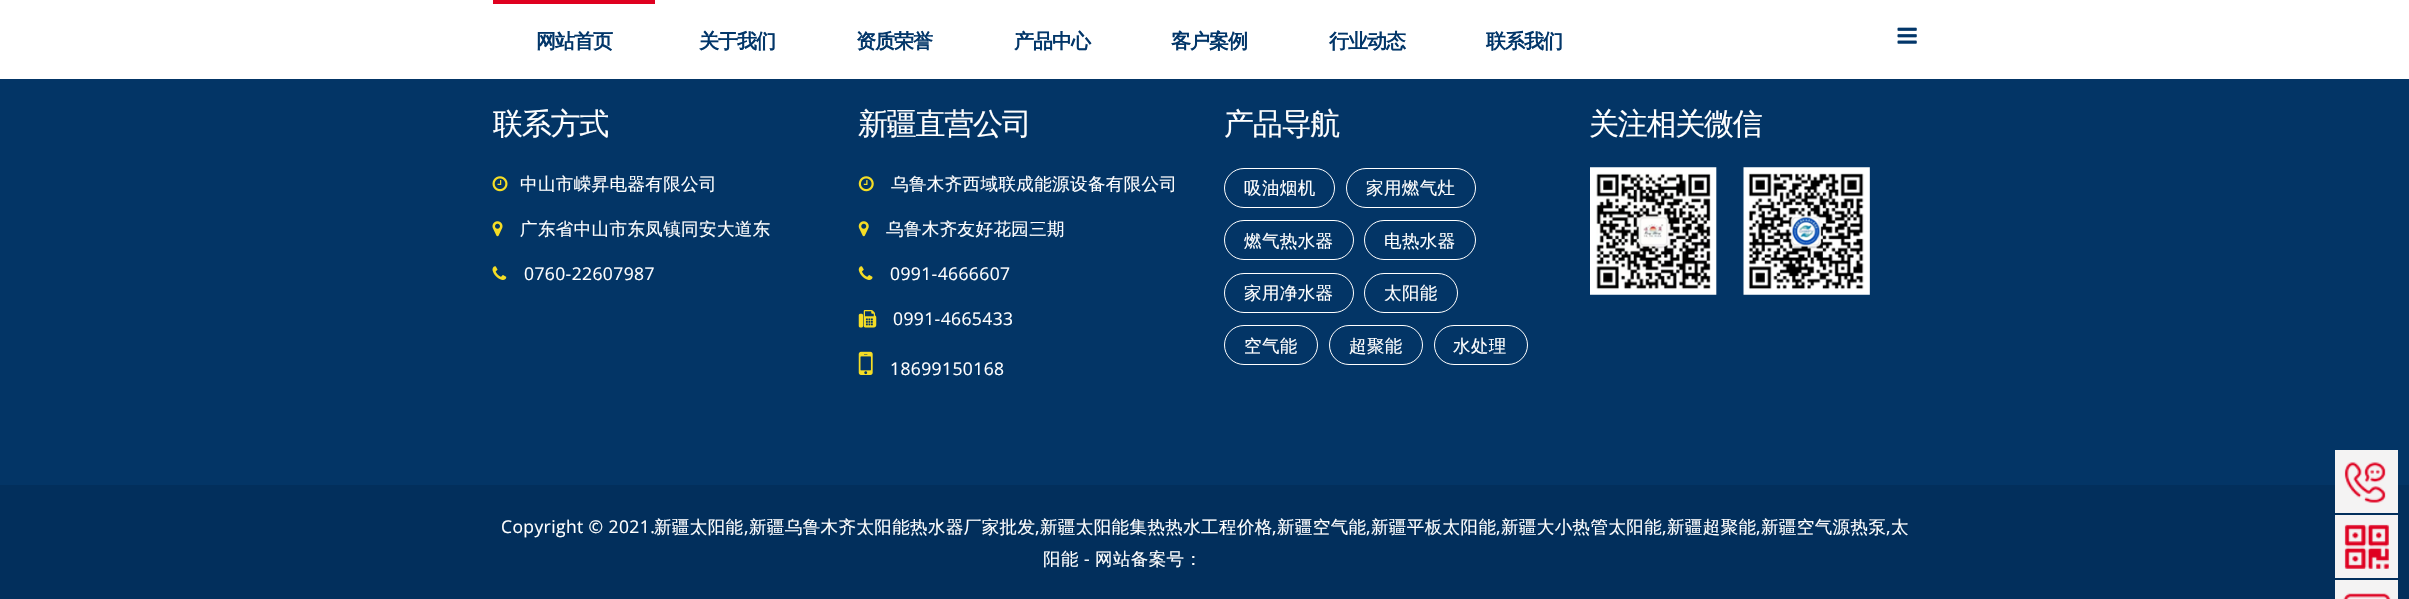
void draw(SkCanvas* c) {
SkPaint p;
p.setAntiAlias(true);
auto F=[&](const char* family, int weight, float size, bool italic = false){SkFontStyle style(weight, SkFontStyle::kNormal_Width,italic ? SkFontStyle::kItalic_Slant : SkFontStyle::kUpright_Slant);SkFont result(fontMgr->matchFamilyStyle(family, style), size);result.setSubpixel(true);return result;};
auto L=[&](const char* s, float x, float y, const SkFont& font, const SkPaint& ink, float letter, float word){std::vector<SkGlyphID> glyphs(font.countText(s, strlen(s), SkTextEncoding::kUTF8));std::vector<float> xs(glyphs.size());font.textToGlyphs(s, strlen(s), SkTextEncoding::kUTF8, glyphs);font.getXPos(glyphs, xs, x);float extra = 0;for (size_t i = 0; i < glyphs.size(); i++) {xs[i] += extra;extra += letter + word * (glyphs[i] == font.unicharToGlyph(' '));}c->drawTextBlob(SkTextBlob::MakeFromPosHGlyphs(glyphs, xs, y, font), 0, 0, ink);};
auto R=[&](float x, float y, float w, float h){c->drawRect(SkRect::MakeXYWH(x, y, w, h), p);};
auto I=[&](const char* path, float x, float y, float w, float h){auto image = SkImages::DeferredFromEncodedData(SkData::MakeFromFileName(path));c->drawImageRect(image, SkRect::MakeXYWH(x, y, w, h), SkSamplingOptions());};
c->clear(0xff033566);
p.setColor(0xffffffff);
R(0,0,2409,79);
p.setColor(0xffdf0020);
R(493,0,162,4);
auto f1 = F("WenQuanYi Zen Hei",700,20);
p.setColor(0xff023669);
L("网站首页",536,48,f1,p,-1,0);
L("关于我们",699,48,f1,p,-1,0);
L("资质荣誉",856,48,f1,p,-1,0);
L("产品中心",1014,48,f1,p,-1,0);
L("客户案例",1171,48,f1,p,-1,0);
L("行业动态",1329,48,f1,p,-1,0);
L("联系我们",1486,48,f1,p,-1,0);
I("1.png",1897,27,20,17);
auto f2 = F("WenQuanYi Zen Hei",500,30);
p.setColor(0xffffffff);
L("联系方式",493,134,f2,p,-1.25,0);
I("2.png",492,176,16,16);
auto f3 = F("WenQuanYi Zen Hei",500,17.5);
L("中山市嵘昇电器有限公司",520,190,f3,p,.4,0);
I("3.png",492,221,11,16);
L("广东省中山市东凤镇同安大道东",520,235,f3,p,.4,0);
I("4.png",492,266,15,14);
auto f4 = F("Open Sans",400,17.5);
L("0760-22607987",524,280,f4,p,.4,0);
L("新疆直营公司",858,134,f2,p,-1.25,0);
I("5.png",858,176,16,16);
L("乌鲁木齐西域联成能源设备有限公司",891,190,f3,p,.4,0);
I("6.png",858,221,11,16);
L("乌鲁木齐友好花园三期",886,235,f3,p,.4,0);
I("7.png",858,266,15,14);
L("0991-4666607",890,280,f4,p,.4,0);
I("8.png",858,310,19,18);
L("0991-4665433",893,325,f4,p,.4,0);
I("9.png",858,351,15,24);
L("18699150168",890,375,f4,p,.4,0);
L("产品导航",1224,134,f2,p,-1.25,0);
p.setStroke(true);
p.setStrokeWidth(1);
c->drawRoundRect(SkRect::MakeXYWH(1224.5,168.5,110,39),19.5,19.5,p);
p.setStroke(false);
L("吸油烟机",1244,194,f3,p,.4,0);
p.setStroke(true);
c->drawRoundRect(SkRect::MakeXYWH(1346.5,168.5,129,39),19.5,19.5,p);
p.setStroke(false);
L("家用燃气灶",1366,194,f3,p,.4,0);
p.setStroke(true);
c->drawRoundRect(SkRect::MakeXYWH(1224.5,220.5,129,39),19.5,19.5,p);
p.setStroke(false);
L("燃气热水器",1244,247,f3,p,.4,0);
p.setStroke(true);
c->drawRoundRect(SkRect::MakeXYWH(1364.5,220.5,111,39),19.5,19.5,p);
p.setStroke(false);
L("电热水器",1384,247,f3,p,.4,0);
p.setStroke(true);
c->drawRoundRect(SkRect::MakeXYWH(1224.5,273.5,129,39),19.5,19.5,p);
p.setStroke(false);
L("家用净水器",1244,299,f3,p,.4,0);
p.setStroke(true);
c->drawRoundRect(SkRect::MakeXYWH(1364.5,273.5,93,39),19.5,19.5,p);
p.setStroke(false);
L("太阳能",1384,299,f3,p,.4,0);
p.setStroke(true);
c->drawRoundRect(SkRect::MakeXYWH(1224.5,325.5,93,39),19.5,19.5,p);
p.setStroke(false);
L("空气能",1244,352,f3,p,.4,0);
p.setStroke(true);
c->drawRoundRect(SkRect::MakeXYWH(1329.5,325.5,93,39),19.5,19.5,p);
p.setStroke(false);
L("超聚能",1349,352,f3,p,.4,0);
p.setStroke(true);
c->drawRoundRect(SkRect::MakeXYWH(1434.5,325.5,93,39),19.5,19.5,p);
p.setStroke(false);
L("水处理",1453,352,f3,p,.4,0);
L("关注相关微信",1589,134,f2,p,-1.25,0);
I("10.png",1590,167,280,128);
p.setColor(0xff022f5c);
R(0,485,2409,114);
I("11.png",2335,450,63,63);
p.setColor(0xffffffff);
L("Copyright © 2021.",501,533,f4,p,.4,0);
L("新疆太阳能",654,533,f3,p,.4,0);
L(",",744,533,f4,p,.4,0);
L("新疆乌鲁木齐太阳能热水器厂家批发",749,533,f3,p,.4,0);
L(",",1035,533,f4,p,.4,0);
L("新疆太阳能集热热水工程价格",1040,533,f3,p,.4,0);
L(",",1272,533,f4,p,.4,0);
L("新疆空气能",1277,533,f3,p,.4,0);
L(",",1366,533,f4,p,.4,0);
L("新疆平板太阳能",1371,533,f3,p,.4,0);
L(",",1496,533,f4,p,.4,0);
L("新疆大小热管太阳能",1501,533,f3,p,.4,0);
L(",",1662,533,f4,p,.4,0);
L("新疆超聚能",1667,533,f3,p,.4,0);
L(",",1756,533,f4,p,.4,0);
L("新疆空气源热泵",1761,533,f3,p,.4,0);
L(",",1886,533,f4,p,.4,0);
L("太",1891,533,f3,p,.4,0);
L("阳能",1043,565,f3,p,.4,0);
L("-",1084,565,f4,p,.4,0);
L("网站备案号：",1095,565,f3,p,.4,0);
I("12.png",2335,515,63,63);
I("13.png",2335,580,63,19);
}
